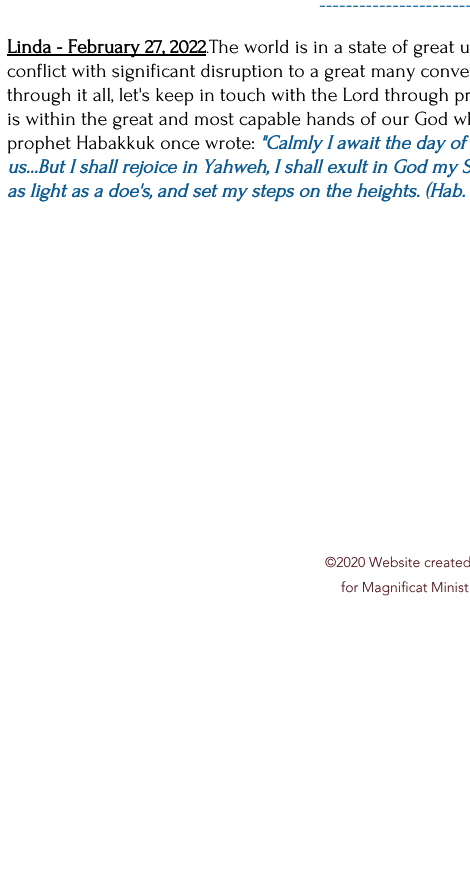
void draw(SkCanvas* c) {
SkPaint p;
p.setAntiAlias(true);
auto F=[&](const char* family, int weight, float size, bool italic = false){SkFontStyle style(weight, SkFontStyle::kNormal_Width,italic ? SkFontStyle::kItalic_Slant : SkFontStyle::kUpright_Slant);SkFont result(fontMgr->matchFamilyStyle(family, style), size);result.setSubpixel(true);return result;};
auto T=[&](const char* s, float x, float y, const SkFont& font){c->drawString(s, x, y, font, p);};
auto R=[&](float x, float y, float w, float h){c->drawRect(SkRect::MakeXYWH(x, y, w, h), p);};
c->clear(0xffffffff);
auto f1 = F("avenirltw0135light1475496",300,20);
p.setColor(0xff0a5a94);
T("-----------------------",319,11,f1);
p.setColor(0xff000000);
R(7,54,199,2);
auto f2 = F("Forum",700,20);
T("Linda - February 27, 2022",7,53,f2);
auto f3 = F("Forum",400,16);
T(".",206,53,f3);
auto f4 = F("Forum",400,20);
T("The world is in a state of great u",209,53,f4);
T("conflict with significant disruption to a great many conve",7,77,f4);
T("through it all, let's keep in touch with the Lord through pr",7,101,f4);
T("is within the great and most capable hands of our God wh",7,125,f4);
T("prophet Habakkuk once wrote:",7,149,f4);
auto f5 = F("Forum",700,20,true);
p.setColor(0xff0a5a94);
T("\"Calmly I await the day of",260,149,f5);
T("us...But I shall rejoice in Yahweh, I shall exult in God my S",7,173,f5);
T("as light as a doe's, and set my steps on the heights. (Hab.",7,197,f5);
auto f6 = F("avenirltw0135light1475496",300,14);
p.setColor(0xff531922);
T("©2020 Website created",325,567,f6);
T("for Magnificat Minist",341,592,f6);
}
